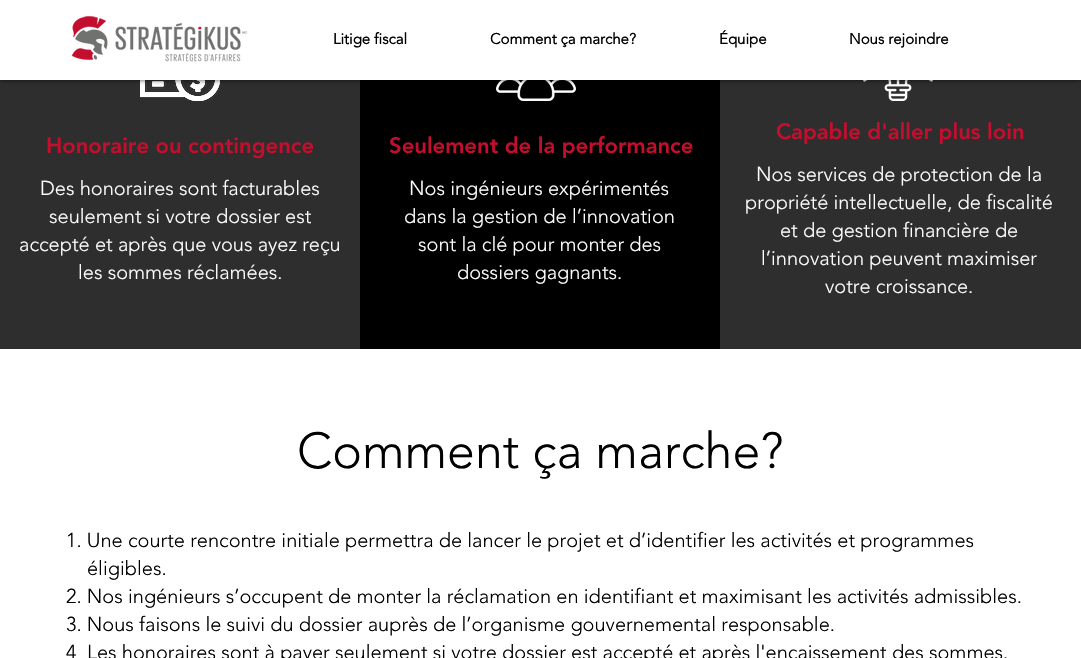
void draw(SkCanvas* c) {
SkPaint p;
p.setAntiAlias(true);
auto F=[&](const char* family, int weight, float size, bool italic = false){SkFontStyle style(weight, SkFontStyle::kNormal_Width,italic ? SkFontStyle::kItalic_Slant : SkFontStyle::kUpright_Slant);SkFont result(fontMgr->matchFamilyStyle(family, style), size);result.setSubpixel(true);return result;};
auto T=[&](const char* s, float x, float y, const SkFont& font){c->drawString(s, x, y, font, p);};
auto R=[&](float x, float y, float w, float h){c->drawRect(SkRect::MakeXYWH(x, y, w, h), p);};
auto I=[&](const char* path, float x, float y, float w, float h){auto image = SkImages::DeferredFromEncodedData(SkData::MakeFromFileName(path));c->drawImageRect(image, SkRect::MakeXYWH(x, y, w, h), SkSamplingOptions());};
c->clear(0xffffffff);
p.setColor(0xff2f2e2e);
R(0,80,360,269);
I("2.png",140,80,80,21);
I("3.png",140,80,80,21);
I("4.png",140,80,80,21);
I("5.png",140,80,80,21);
p.setColor(0xff000000);
R(360,80,360,269);
I("6.png",496,80,80,21);
p.setColor(0xff2f2e2e);
R(720,80,361,269);
I("7.png",863,80,70,21);
p.setColor(0xb3000000);
p.setMaskFilter(SkMaskFilter::MakeBlur(kNormal_SkBlurStyle, 2.5));
c->drawRect(SkRect::MakeXYWH(0,0,1081,80),p);
p.setMaskFilter(nullptr);
p.setColor(0xffffffff);
R(0,0,1081,80);
I("1.png",71,16,177,46);
auto f1 = F("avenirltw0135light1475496",700,15);
p.setColor(0xff000000);
T("Litige fiscal",333,44,f1);
T("Comment ça marche?",490,44,f1);
T("Équipe",719,44,f1);
T("Nous rejoindre",849,44,f1);
auto f2 = F("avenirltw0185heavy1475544",900,22);
p.setColor(0xffc30e2e);
T("Honoraire ou contingence",46,153,f2);
auto f3 = F("avenirltw0135light1475496",300,20);
p.setColor(0xffffffff);
T("Des honoraires sont facturables",40,195,f3);
T("seulement si votre dossier est",49,223,f3);
T("accepté et après que vous ayez reçu",19,251,f3);
T("les sommes réclamées.",78,279,f3);
p.setColor(0xffc30e2e);
T("Seulement de la performance",389,153,f2);
p.setColor(0xffffffff);
T("Nos ingénieurs expérimentés",409,195,f3);
T("dans la gestion de l’innovation",404,223,f3);
T("sont la clé pour monter des",418,251,f3);
T("dossiers gagnants.",457,279,f3);
p.setColor(0xffc30e2e);
T("Capable d'aller plus loin",776,139,f2);
p.setColor(0xffffffff);
T("Nos services de protection de la",756,181,f3);
T("propriété intellectuelle, de fiscalité",745,209,f3);
T("et de gestion financière de",780,237,f3);
T("l’innovation peuvent maximiser",761,265,f3);
T("votre croissance.",825,293,f3);
auto f4 = F("avenirltw0135light1475496",300,50);
p.setColor(0xff000000);
T("Comment ça marche?",297,468,f4);
T("1. Une courte rencontre initiale permettra de lancer le projet et d’identifier les activités et programmes",66,547,f3);
T("éligibles.",87,575,f3);
T("2. Nos ingénieurs s’occupent de monter la réclamation en identifiant et maximisant les activités admissibles.",66,603,f3);
T("3. Nous faisons le suivi du dossier auprès de l’organisme gouvernemental responsable.",66,631,f3);
T("4",66,659,f3);
T("Les honoraires sont à payer seulement si votre dossier est accepté et après l'encaissement des sommes.",87,659,f3);
}
